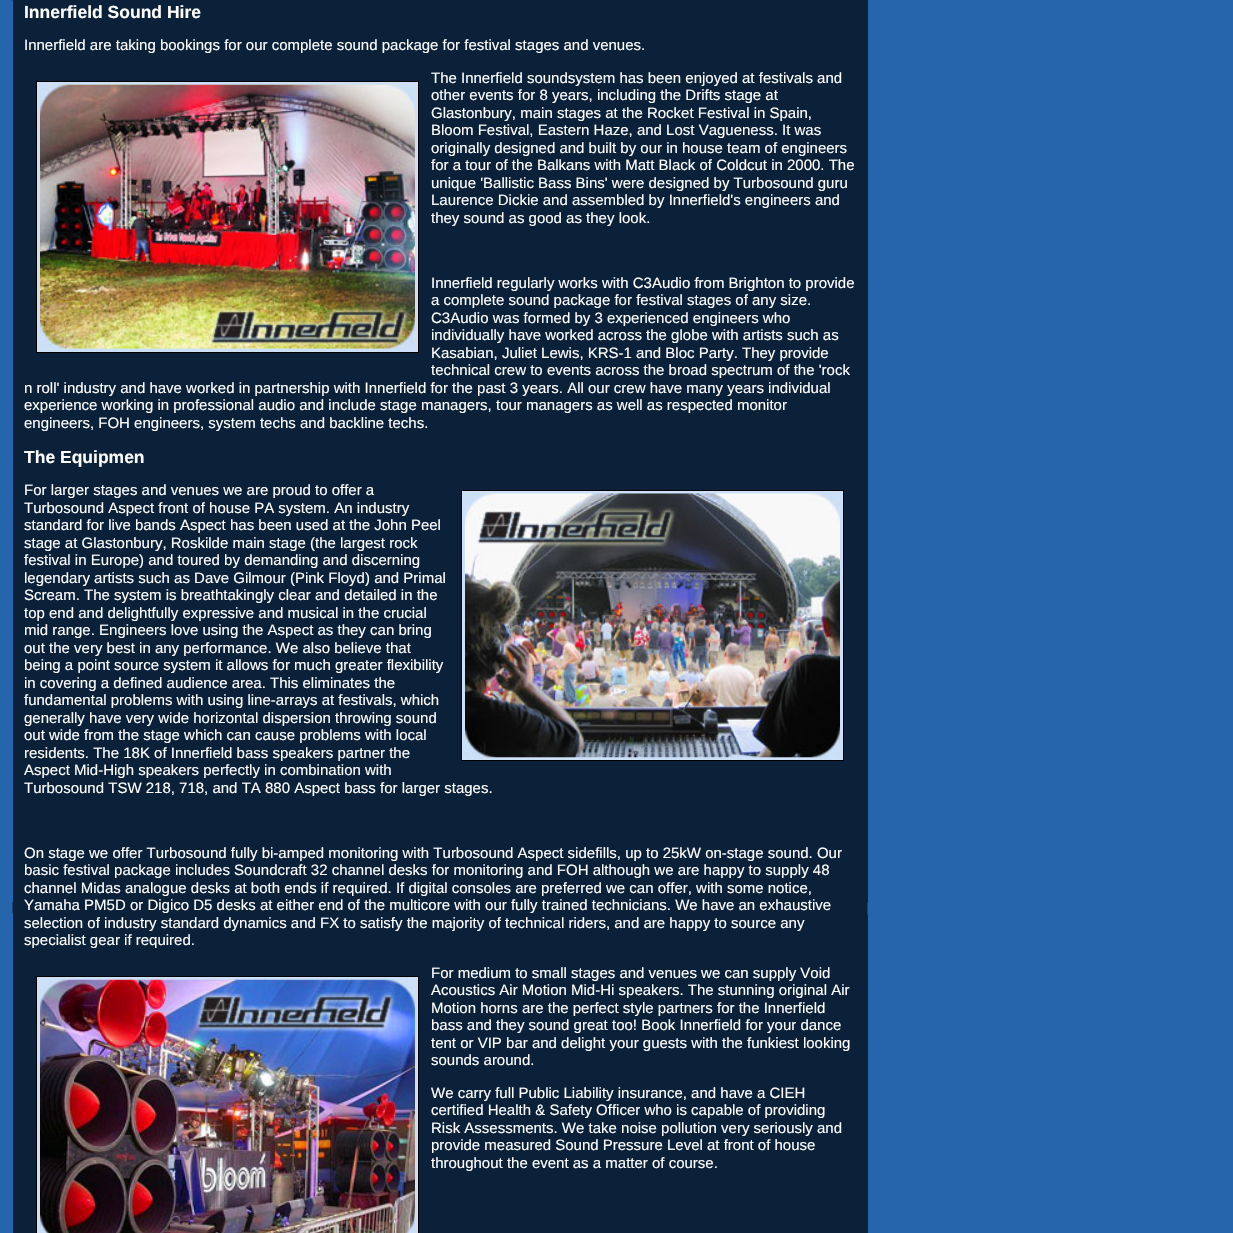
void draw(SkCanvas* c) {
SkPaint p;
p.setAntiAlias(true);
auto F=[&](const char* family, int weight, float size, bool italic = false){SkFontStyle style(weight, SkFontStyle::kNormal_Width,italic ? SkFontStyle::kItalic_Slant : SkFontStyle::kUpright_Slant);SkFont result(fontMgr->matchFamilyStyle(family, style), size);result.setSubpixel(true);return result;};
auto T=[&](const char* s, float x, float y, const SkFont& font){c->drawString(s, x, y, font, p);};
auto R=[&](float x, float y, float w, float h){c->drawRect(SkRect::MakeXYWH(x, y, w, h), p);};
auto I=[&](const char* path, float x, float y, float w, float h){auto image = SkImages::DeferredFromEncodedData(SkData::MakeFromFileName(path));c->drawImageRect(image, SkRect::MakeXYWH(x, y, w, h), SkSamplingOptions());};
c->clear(0xff2565ac);
p.setColor(0xff0b213a);
R(13,0,855,1233);
I("1.png",12,0,2,1);
I("2.png",866,0,2,1);
I("3.png",12,902,1,12);
auto f1 = F("Liberation Sans",700,17.5);
p.setColor(0xffffffff);
T("Innerfield Sound Hire",24,18,f1);
auto f2 = F("Liberation Sans",400,15);
T("Innerfield are taking bookings for our complete sound package for festival stages and venues.",24,50,f2);
p.setColor(0xffcce0f7);
c->drawRect(SkRect::MakeXYWH(36.5,81.5,382,271),p);
p.setStroke(true);
p.setStrokeWidth(1);
p.setColor(0xff000000);
c->drawRect(SkRect::MakeXYWH(36.5,81.5,382,271),p);
I("4.png",40,84,375,265);
p.setStroke(false);
p.setColor(0xffffffff);
T("The Innerfield soundsystem has been enjoyed at festivals and",431,83,f2);
T("other events for 8 years, including the Drifts stage at",431,100,f2);
T("Glastonbury, main stages at the Rocket Festival in Spain,",431,118,f2);
T("Bloom Festival, Eastern Haze, and Lost Vagueness. It was",431,135,f2);
T("originally designed and built by our in house team of engineers",431,153,f2);
T("for a tour of the Balkans with Matt Black of Coldcut in 2000. The",431,170,f2);
T("unique 'Ballistic Bass Bins' were designed by Turbosound guru",431,188,f2);
T("Laurence Dickie and assembled by Innerfield's engineers and",431,205,f2);
T("they sound as good as they look.",431,223,f2);
T("Innerfield regularly works with C3Audio from Brighton to provide",431,288,f2);
T("a complete sound package for festival stages of any size.",431,305,f2);
T("C3Audio was formed by 3 experienced engineers who",431,323,f2);
T("individually have worked across the globe with artists such as",431,340,f2);
T("Kasabian, Juliet Lewis, KRS-1 and Bloc Party. They provide",431,358,f2);
T("technical crew to events across the broad spectrum of the 'rock",431,375,f2);
T("n roll' industry and have worked in partnership with Innerfield for the past 3 years. All our crew have many years individual",24,393,f2);
T("experience working in professional audio and include stage managers, tour managers as well as respected monitor",24,410,f2);
T("engineers, FOH engineers, system techs and backline techs.",24,428,f2);
T("The Equipmen",24,463,f1);
T("For larger stages and venues we are proud to offer a",24,495,f2);
T("Turbosound Aspect front of house PA system. An industry",24,513,f2);
T("standard for live bands Aspect has been used at the John Peel",24,530,f2);
T("stage at Glastonbury, Roskilde main stage (the largest rock",24,548,f2);
T("festival in Europe) and toured by demanding and discerning",24,565,f2);
T("legendary artists such as Dave Gilmour (Pink Floyd) and Primal",24,583,f2);
T("Scream. The system is breathtakingly clear and detailed in the",24,600,f2);
T("top end and delightfully expressive and musical in the crucial",24,618,f2);
T("mid range. Engineers love using the Aspect as they can bring",24,635,f2);
T("out the very best in any performance. We also believe that",24,653,f2);
T("being a point source system it allows for much greater flexibility",24,670,f2);
T("in covering a defined audience area. This eliminates the",24,688,f2);
T("fundamental problems with using line-arrays at festivals, which",24,705,f2);
T("generally have very wide horizontal dispersion throwing sound",24,723,f2);
T("out wide from the stage which can cause problems with local",24,740,f2);
T("residents. The 18K of Innerfield bass speakers partner the",24,758,f2);
T("Aspect Mid-High speakers perfectly in combination with",24,775,f2);
T("Turbosound TSW 218, 718, and TA 880 Aspect bass for larger stages.",24,793,f2);
p.setColor(0xffcce0f7);
c->drawRect(SkRect::MakeXYWH(461.5,490.5,382,270),p);
p.setStroke(true);
p.setColor(0xff000000);
c->drawRect(SkRect::MakeXYWH(461.5,490.5,382,270),p);
I("5.png",465,493,375,265);
p.setStroke(false);
p.setColor(0xffffffff);
T("On stage we offer Turbosound fully bi-amped monitoring with Turbosound Aspect sidefills, up to 25kW on-stage sound. Our",24,858,f2);
T("basic festival package includes Soundcraft 32 channel desks for monitoring and FOH although we are happy to supply 48",24,875,f2);
T("channel Midas analogue desks at both ends if required. If digital consoles are preferred we can offer, with some notice,",24,893,f2);
T("Yamaha PM5D or Digico D5 desks at either end of the multicore with our fully trained technicians. We have an exhaustive",24,910,f2);
T("selection of industry standard dynamics and FX to satisfy the majority of technical riders, and are happy to source any",24,928,f2);
T("specialist gear if required.",24,945,f2);
p.setColor(0xffcce0f7);
c->drawRect(SkRect::MakeXYWH(36.5,976.5,382,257),p);
p.setStroke(true);
p.setColor(0xff000000);
c->drawRect(SkRect::MakeXYWH(36.5,976.5,382,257),p);
I("6.png",40,979,375,254);
p.setStroke(false);
p.setColor(0xffffffff);
T("For medium to small stages and venues we can supply Void",431,978,f2);
T("Acoustics Air Motion Mid-Hi speakers. The stunning original Air",431,995,f2);
T("Motion horns are the perfect style partners for the Innerfield",431,1013,f2);
T("bass and they sound great too! Book Innerfield for your dance",431,1030,f2);
T("tent or VIP bar and delight your guests with the funkiest looking",431,1048,f2);
T("sounds around.",431,1065,f2);
T("We carry full Public Liability insurance, and have a CIEH",431,1098,f2);
T("certified Health & Safety Officer who is capable of providing",431,1115,f2);
T("Risk Assessments. We take noise pollution very seriously and",431,1133,f2);
T("provide measured Sound Pressure Level at front of house",431,1150,f2);
T("throughout the event as a matter of course.",431,1168,f2);
I("7.png",867,902,1,13);
}
